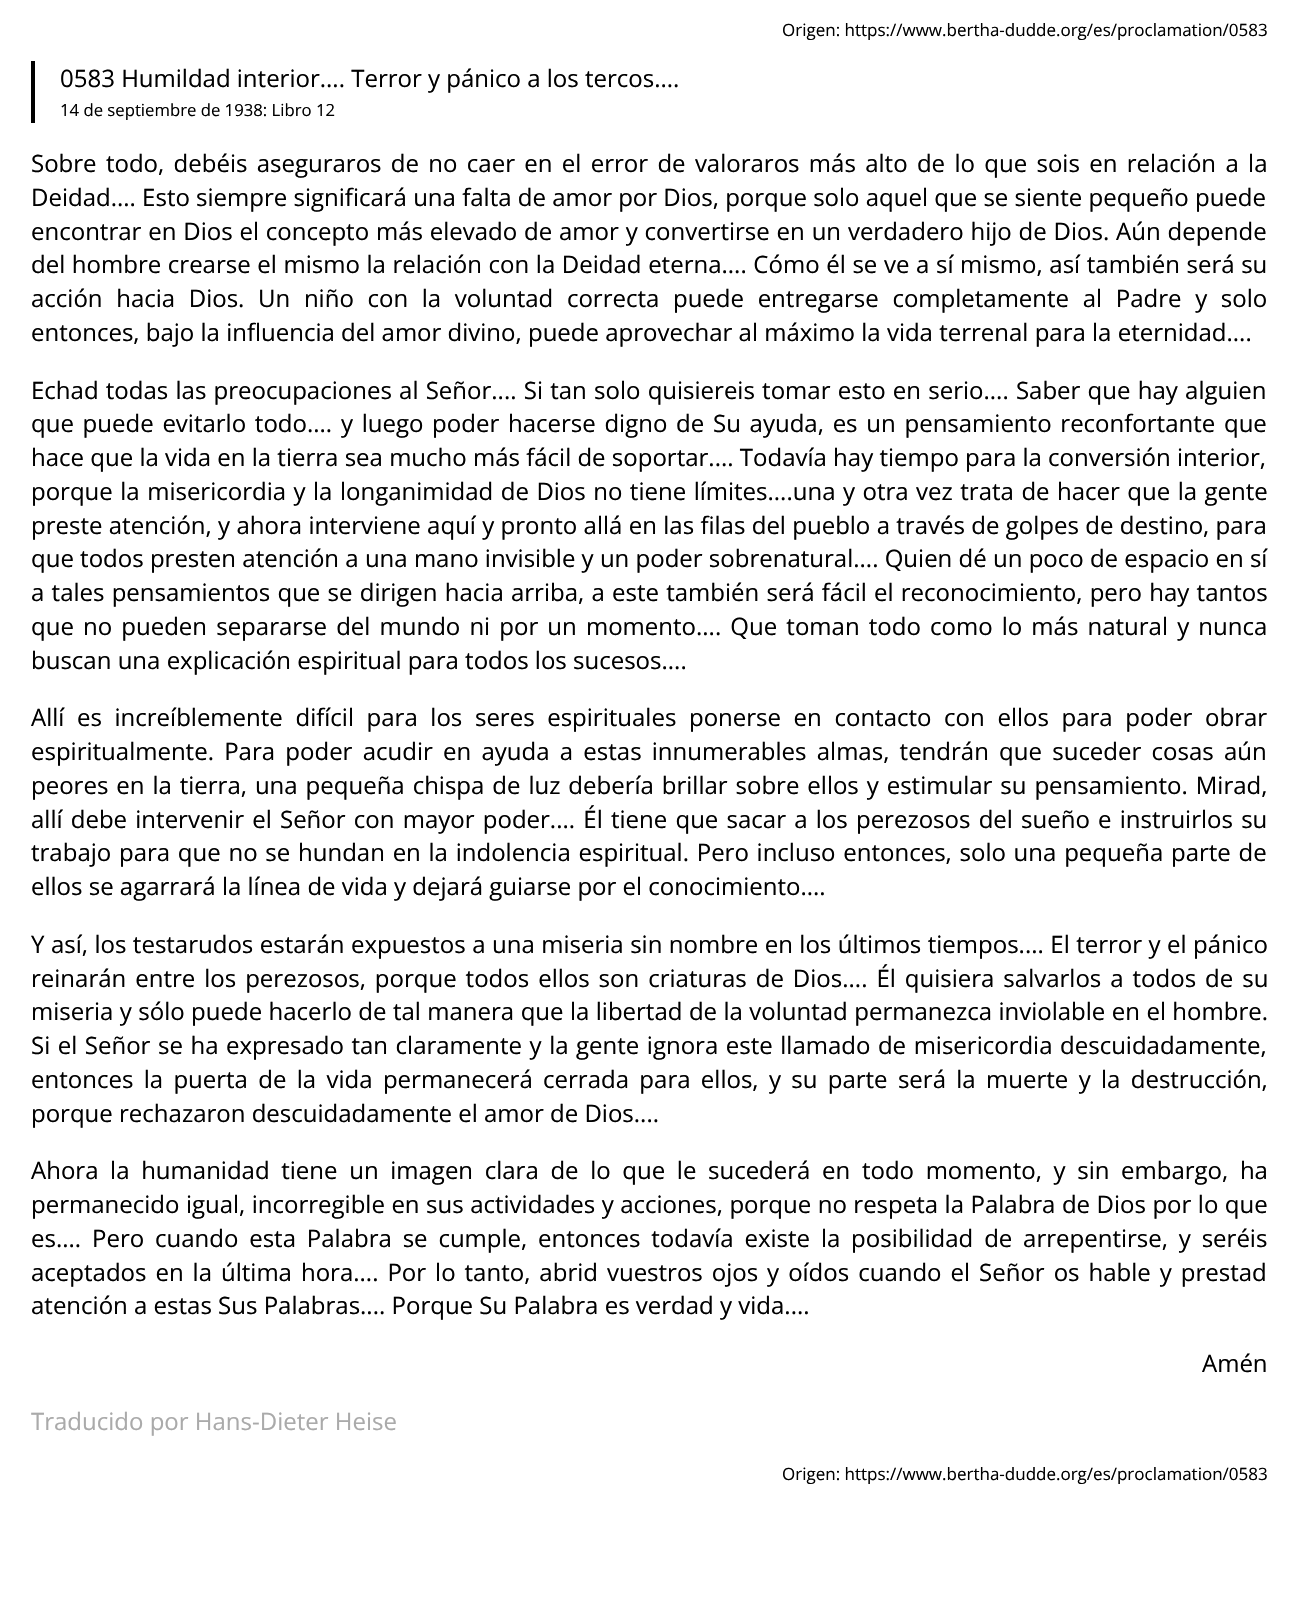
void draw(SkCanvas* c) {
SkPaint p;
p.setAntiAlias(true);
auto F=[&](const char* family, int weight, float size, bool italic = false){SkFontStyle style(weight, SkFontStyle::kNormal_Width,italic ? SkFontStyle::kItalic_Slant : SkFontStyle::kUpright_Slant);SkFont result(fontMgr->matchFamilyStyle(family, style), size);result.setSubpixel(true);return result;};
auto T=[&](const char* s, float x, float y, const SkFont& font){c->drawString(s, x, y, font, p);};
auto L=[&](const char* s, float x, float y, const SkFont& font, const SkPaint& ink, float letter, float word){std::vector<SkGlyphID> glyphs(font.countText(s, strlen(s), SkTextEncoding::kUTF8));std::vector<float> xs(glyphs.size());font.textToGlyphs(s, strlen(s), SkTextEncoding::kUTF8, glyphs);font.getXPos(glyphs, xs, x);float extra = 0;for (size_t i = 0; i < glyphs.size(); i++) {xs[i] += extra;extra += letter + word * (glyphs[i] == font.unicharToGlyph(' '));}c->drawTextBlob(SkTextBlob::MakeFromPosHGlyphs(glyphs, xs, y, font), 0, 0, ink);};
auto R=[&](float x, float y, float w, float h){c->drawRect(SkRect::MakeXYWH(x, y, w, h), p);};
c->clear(0xffffffff);
auto f1 = F("Open Sans",400,17);
p.setColor(0xff000000);
T("Origen: https://www.bertha-dudde.org/es/proclamation/0583",782,36,f1);
R(31,61,4,62);
auto f2 = F("Open Sans",400,24);
T("0583 Humildad interior.... Terror y pánico a los tercos....",60,87,f2);
auto f3 = F("Open Sans",400,16.7);
T("14 de septiembre de 1938: Libro 12",60,116,f3);
L("Sobre todo, debéis aseguraros de no caer en el error de valoraros más alto de lo que sois en relación a la",31,172,f2,p,0,3.1);
T("Deidad.... Esto siempre significará una falta de amor por Dios, porque solo aquel que se siente pequeño puede",31,206,f2);
L("encontrar en Dios el concepto más elevado de amor y convertirse en un verdadero hijo de Dios. Aún depende",31,240,f2,p,0,.6);
L("del hombre crearse el mismo la relación con la Deidad eterna.... Cómo él se ve a sí mismo, así también será su",31,273,f2,p,0,.4);
L("acción hacia Dios. Un niño con la voluntad correcta puede entregarse completamente al Padre y solo",31,307,f2,p,0,7.4);
T("entonces, bajo la influencia del amor divino, puede aprovechar al máximo la vida terrenal para la eternidad....",31,341,f2);
L("Echad todas las preocupaciones al Señor.... Si tan solo quisiereis tomar esto en serio.... Saber que hay alguien",31,399,f2,p,0,1);
L("que puede evitarlo todo.... y luego poder hacerse digno de Su ayuda, es un pensamiento reconfortante que",31,432,f2,p,0,2.5);
T("hace que la vida en la tierra sea mucho más fácil de soportar.... Todavía hay tiempo para la conversión interior,",31,466,f2);
L("porque la misericordia y la longanimidad de Dios no tiene límites....una y otra vez trata de hacer que la gente",31,500,f2,p,0,1.25);
L("preste atención, y ahora interviene aquí y pronto allá en las filas del pueblo a través de golpes de destino, para",31,534,f2,p,0,.1);
T("que todos presten atención a una mano invisible y un poder sobrenatural.... Quien dé un poco de espacio en sí",31,567,f2);
L("a tales pensamientos que se dirigen hacia arriba, a este también será fácil el reconocimiento, pero hay tantos",31,601,f2,p,0,1);
L("que no pueden separarse del mundo ni por un momento.... Que toman todo como lo más natural y nunca",31,635,f2,p,0,2.9);
T("buscan una explicación espiritual para todos los sucesos....",31,669,f2);
L("Allí es increíblemente difícil para los seres espirituales ponerse en contacto con ellos para poder obrar",31,726,f2,p,0,6.4);
L("espiritualmente. Para poder acudir en ayuda a estas innumerables almas, tendrán que suceder cosas aún",31,760,f2,p,0,4);
L("peores en la tierra, una pequeña chispa de luz debería brillar sobre ellos y estimular su pensamiento. Mirad,",31,794,f2,p,0,1.7);
L("allí debe intervenir el Señor con mayor poder.... Él tiene que sacar a los perezosos del sueño e instruirlos su",31,828,f2,p,0,2);
L("trabajo para que no se hundan en la indolencia espiritual. Pero incluso entonces, solo una pequeña parte de",31,861,f2,p,0,1.5);
T("ellos se agarrará la línea de vida y dejará guiarse por el conocimiento....",31,895,f2);
L("Y así, los testarudos estarán expuestos a una miseria sin nombre en los últimos tiempos.... El terror y el pánico",31,953,f2,p,0,.25);
L("reinarán entre los perezosos, porque todos ellos son criaturas de Dios.... Él quisiera salvarlos a todos de su",31,987,f2,p,0,2.75);
L("miseria y sólo puede hacerlo de tal manera que la libertad de la voluntad permanezca inviolable en el hombre.",31,1020,f2,p,0,.2);
L("Si el Señor se ha expresado tan claramente y la gente ignora este llamado de misericordia descuidadamente,",31,1054,f2,p,0,1.3);
L("entonces la puerta de la vida permanecerá cerrada para ellos, y su parte será la muerte y la destrucción,",31,1088,f2,p,0,4.1);
T("porque rechazaron descuidadamente el amor de Dios....",31,1122,f2);
L("Ahora la humanidad tiene un imagen clara de lo que le sucederá en todo momento, y sin embargo, ha",31,1179,f2,p,0,5.4);
L("permanecido igual, incorregible en sus actividades y acciones, porque no respeta la Palabra de Dios por lo que",31,1213,f2,p,0,.25);
L("es.... Pero cuando esta Palabra se cumple, entonces todavía existe la posibilidad de arrepentirse, y seréis",31,1247,f2,p,0,4.6);
L("aceptados en la última hora.... Por lo tanto, abrid vuestros ojos y oídos cuando el Señor os hable y prestad",31,1281,f2,p,0,2.75);
T("atención a estas Sus Palabras.... Porque Su Palabra es verdad y vida....",31,1314,f2);
T("Amén",1202,1372,f2);
p.setColor(0xffaaaaaa);
T("Traducido por Hans-Dieter Heise",31,1430,f2);
p.setColor(0xff000000);
T("Origen: https://www.bertha-dudde.org/es/proclamation/0583",782,1480,f1);
}
